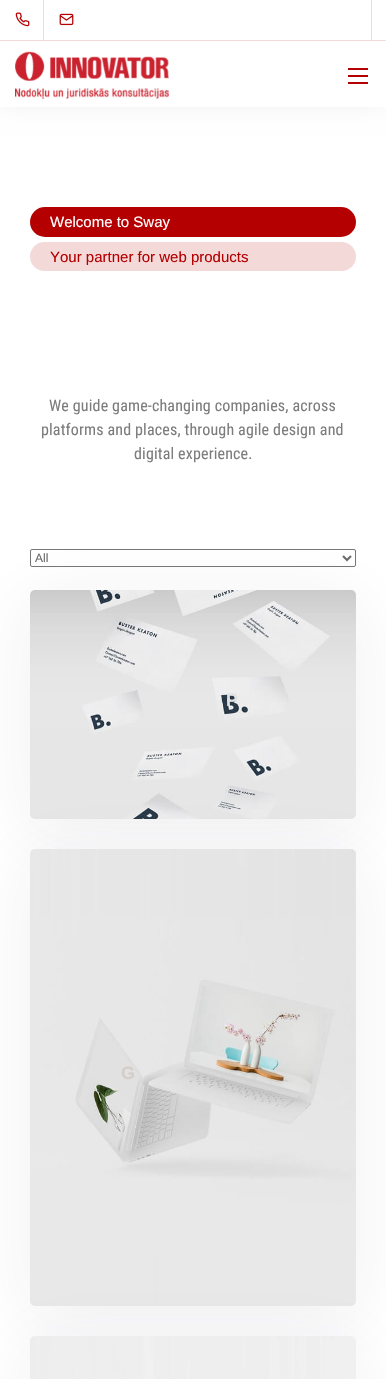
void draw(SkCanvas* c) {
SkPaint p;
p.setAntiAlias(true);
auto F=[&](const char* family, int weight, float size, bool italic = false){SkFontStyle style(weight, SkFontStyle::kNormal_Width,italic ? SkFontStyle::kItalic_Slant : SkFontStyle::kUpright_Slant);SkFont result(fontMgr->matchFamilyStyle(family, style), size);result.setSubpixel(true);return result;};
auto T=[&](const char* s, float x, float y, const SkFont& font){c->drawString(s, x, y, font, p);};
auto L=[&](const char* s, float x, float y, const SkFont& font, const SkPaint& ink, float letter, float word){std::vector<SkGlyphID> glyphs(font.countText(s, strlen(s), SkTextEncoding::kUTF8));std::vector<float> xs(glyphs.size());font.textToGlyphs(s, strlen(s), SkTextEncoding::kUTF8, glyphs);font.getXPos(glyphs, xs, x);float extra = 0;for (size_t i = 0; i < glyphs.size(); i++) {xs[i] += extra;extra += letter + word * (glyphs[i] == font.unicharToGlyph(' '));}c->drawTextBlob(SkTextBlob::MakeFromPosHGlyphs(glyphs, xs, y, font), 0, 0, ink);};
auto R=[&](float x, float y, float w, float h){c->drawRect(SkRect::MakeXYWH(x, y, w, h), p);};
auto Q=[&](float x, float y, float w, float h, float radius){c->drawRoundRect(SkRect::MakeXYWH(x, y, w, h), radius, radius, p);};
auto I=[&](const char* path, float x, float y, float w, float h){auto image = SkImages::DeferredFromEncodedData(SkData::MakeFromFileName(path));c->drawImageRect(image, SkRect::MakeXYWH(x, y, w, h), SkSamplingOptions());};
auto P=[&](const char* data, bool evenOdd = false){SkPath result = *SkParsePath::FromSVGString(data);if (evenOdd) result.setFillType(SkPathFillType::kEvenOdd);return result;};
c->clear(0xffffffff);
p.setColor(0x0d000000);
p.setMaskFilter(SkMaskFilter::MakeBlur(kNormal_SkBlurStyle, 10));
c->drawRect(SkRect::MakeXYWH(0,0,386,107),p);
p.setMaskFilter(nullptr);
p.setColor(0xffffffff);
R(0,0,386,40);
p.setColor(0xfff4d9d9);
R(0,40,386,1);
R(43,0,1,40);
I("1.png",15,12,15,15);
I("2.png",59,13,15,13);
R(371,0,1,40);
p.setColor(0xffffffff);
R(0,41,386,66);
I("3.png",15,51,154,48);
p.setColor(0xffb40001);
R(348,82,20,2);
R(348,68,20,2);
R(348,75,20,2);
Q(30,207,326,30,15);
auto f1 = F("Liberation Sans",400,15);
p.setColor(0xffffffff);
T("Welcome to Sway",50,227,f1);
p.setColor(0xfff4d9d9);
Q(30,242,326,29,14.5);
p.setColor(0xffb40001);
T("Your partner for web products",50,262,f1);
auto f2 = F("Roboto Condensed",400,16);
p.setColor(0xff7c7c7c);
L("We guide game-changing companies, across",49,411,f2,p,.15,0);
L("platforms and places, through agile design and",41,435,f2,p,.15,0);
L("digital experience.",134,459,f2,p,.15,0);
p.setStroke(true);
p.setStrokeWidth(1);
p.setColor(0xff767676);
c->drawRoundRect(SkRect::MakeXYWH(30.5,549.5,325,17),1.5,1.5,p);
p.setStrokeWidth(2);
p.setColor(0xff696969);
c->drawPath(P("M343 556l4 4l4-4"),p);
auto f3 = F("Liberation Sans",400,12);
p.setStroke(false);
T("All",35,562,f3);
p.setColor(0x12262a4c);
p.setMaskFilter(SkMaskFilter::MakeBlur(kNormal_SkBlurStyle, 35));
c->drawRoundRect(SkRect::MakeXYWH(30,600,326,229),5,5,p);
p.setMaskFilter(nullptr);
I("4.png",30,590,326,229);
auto f4 = F("Liberation Sans",700,18);
p.setColor(0xffe2e2e3);
T("P",226,706,f4);
p.setColor(0x12262a4c);
p.setMaskFilter(SkMaskFilter::MakeBlur(kNormal_SkBlurStyle, 35));
c->drawRoundRect(SkRect::MakeXYWH(30,859,326,457),5,5,p);
p.setMaskFilter(nullptr);
I("5.png",30,849,326,457);
p.setColor(0xffd4cec9);
T("G",121,1079,f4);
p.setColor(0x12262a4c);
p.setMaskFilter(SkMaskFilter::MakeBlur(kNormal_SkBlurStyle, 35));
c->drawRoundRect(SkRect::MakeXYWH(30,1346,326,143),5,5,p);
p.setMaskFilter(nullptr);
I("6.png",30,1336,326,43);
}
